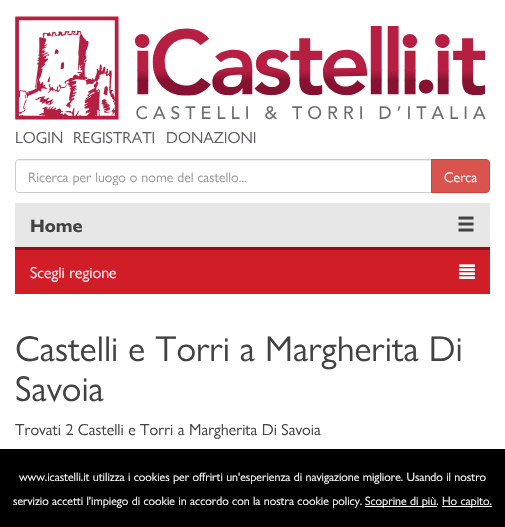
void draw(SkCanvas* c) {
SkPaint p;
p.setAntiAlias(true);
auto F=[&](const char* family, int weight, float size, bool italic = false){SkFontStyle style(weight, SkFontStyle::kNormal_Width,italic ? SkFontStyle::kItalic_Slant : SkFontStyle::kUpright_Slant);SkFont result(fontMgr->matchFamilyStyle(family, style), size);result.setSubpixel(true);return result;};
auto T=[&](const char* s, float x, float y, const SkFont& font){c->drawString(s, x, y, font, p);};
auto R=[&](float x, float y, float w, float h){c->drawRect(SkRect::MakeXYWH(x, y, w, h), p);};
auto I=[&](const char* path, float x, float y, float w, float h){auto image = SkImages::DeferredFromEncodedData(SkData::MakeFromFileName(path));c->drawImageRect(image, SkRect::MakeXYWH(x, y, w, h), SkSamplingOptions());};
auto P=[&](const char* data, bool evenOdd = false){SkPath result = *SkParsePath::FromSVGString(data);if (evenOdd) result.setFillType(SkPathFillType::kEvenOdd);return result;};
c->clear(0xffffffff);
I("1.png",15,16,471,104);
auto f1 = F("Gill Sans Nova",400,16);
p.setColor(0xff5f5d60);
T("LOGIN",15,143,f1);
T("REGISTRATI",73,143,f1);
T("DONAZIONI",166,143,f1);
p.setColor(0xffececec);
c->drawPath(P("M19 161h412v-1h-412c-2 0-3 2-3 4c0-2 1-3 3-3z"),p);
p.setStroke(true);
p.setStrokeWidth(1);
p.setColor(0xffcccccc);
c->drawPath(P("M19 159.5h412.5v33h-412.5c-2 0-3.5-1.5-3.5-3.5v-26c0-2 1.5-3.5 3.5-3.5z"),p);
auto f2 = F("Gill Sans Nova",400,14);
p.setStroke(false);
p.setColor(0xff999999);
T("Ricerca per luogo o nome del castello...",28,182,f2);
p.setColor(0xffd9534f);
c->drawPath(P("M431.5 159.5h54.5c2 0 3.5 1.5 3.5 3.5v26c0 2-1.5 3.5-3.5 3.5h-54.5z"),p);
p.setStroke(true);
p.setColor(0xffd43f3a);
c->drawPath(P("M431.5 159.5h54.5c2 0 3.5 1.5 3.5 3.5v26c0 2-1.5 3.5-3.5 3.5h-54.5z"),p);
p.setStroke(false);
p.setColor(0xffffffff);
T("Cerca",444,182,f2);
p.setColor(0xffe7e7e7);
R(15,203,475,44);
auto f3 = F("Gill Sans Nova",700,18);
p.setColor(0xff424241);
T("Home",30,232,f3);
I("2.png",458,216,16,16);
p.setColor(0xffd11d28);
R(15,250,475,44);
p.setColor(0xff960c14);
R(15,247,475,3);
p.setColor(0xffffffff);
T("Scegli regione",30,278,f1);
I("3.png",459,264,16,15);
auto f4 = F("Gill Sans Nova",400,36);
p.setColor(0xff424241);
T("Castelli e Torri a Margherita Di",15,361,f4);
T("Savoia",15,401,f4);
T("Trovati 2 Castelli e Torri a Margherita Di Savoia",15,435,f1);
p.setColor(0xff000000);
R(0,449,505,78);
auto f5 = F("Gill Sans Nova",400,12);
p.setColor(0xffffffff);
T("www.icastelli.it utilizza i cookies per offrirti un'esperienza di navigazione migliore. Usando il nostro",19,481,f5);
T("servizio accetti l'impiego di cookie in accordo con la nostra cookie policy.",13,505,f5);
R(365,506,72,1);
T("Scoprine di più.",365,505,f5);
R(442,506,50,1);
T("Ho capito.",442,505,f5);
}
